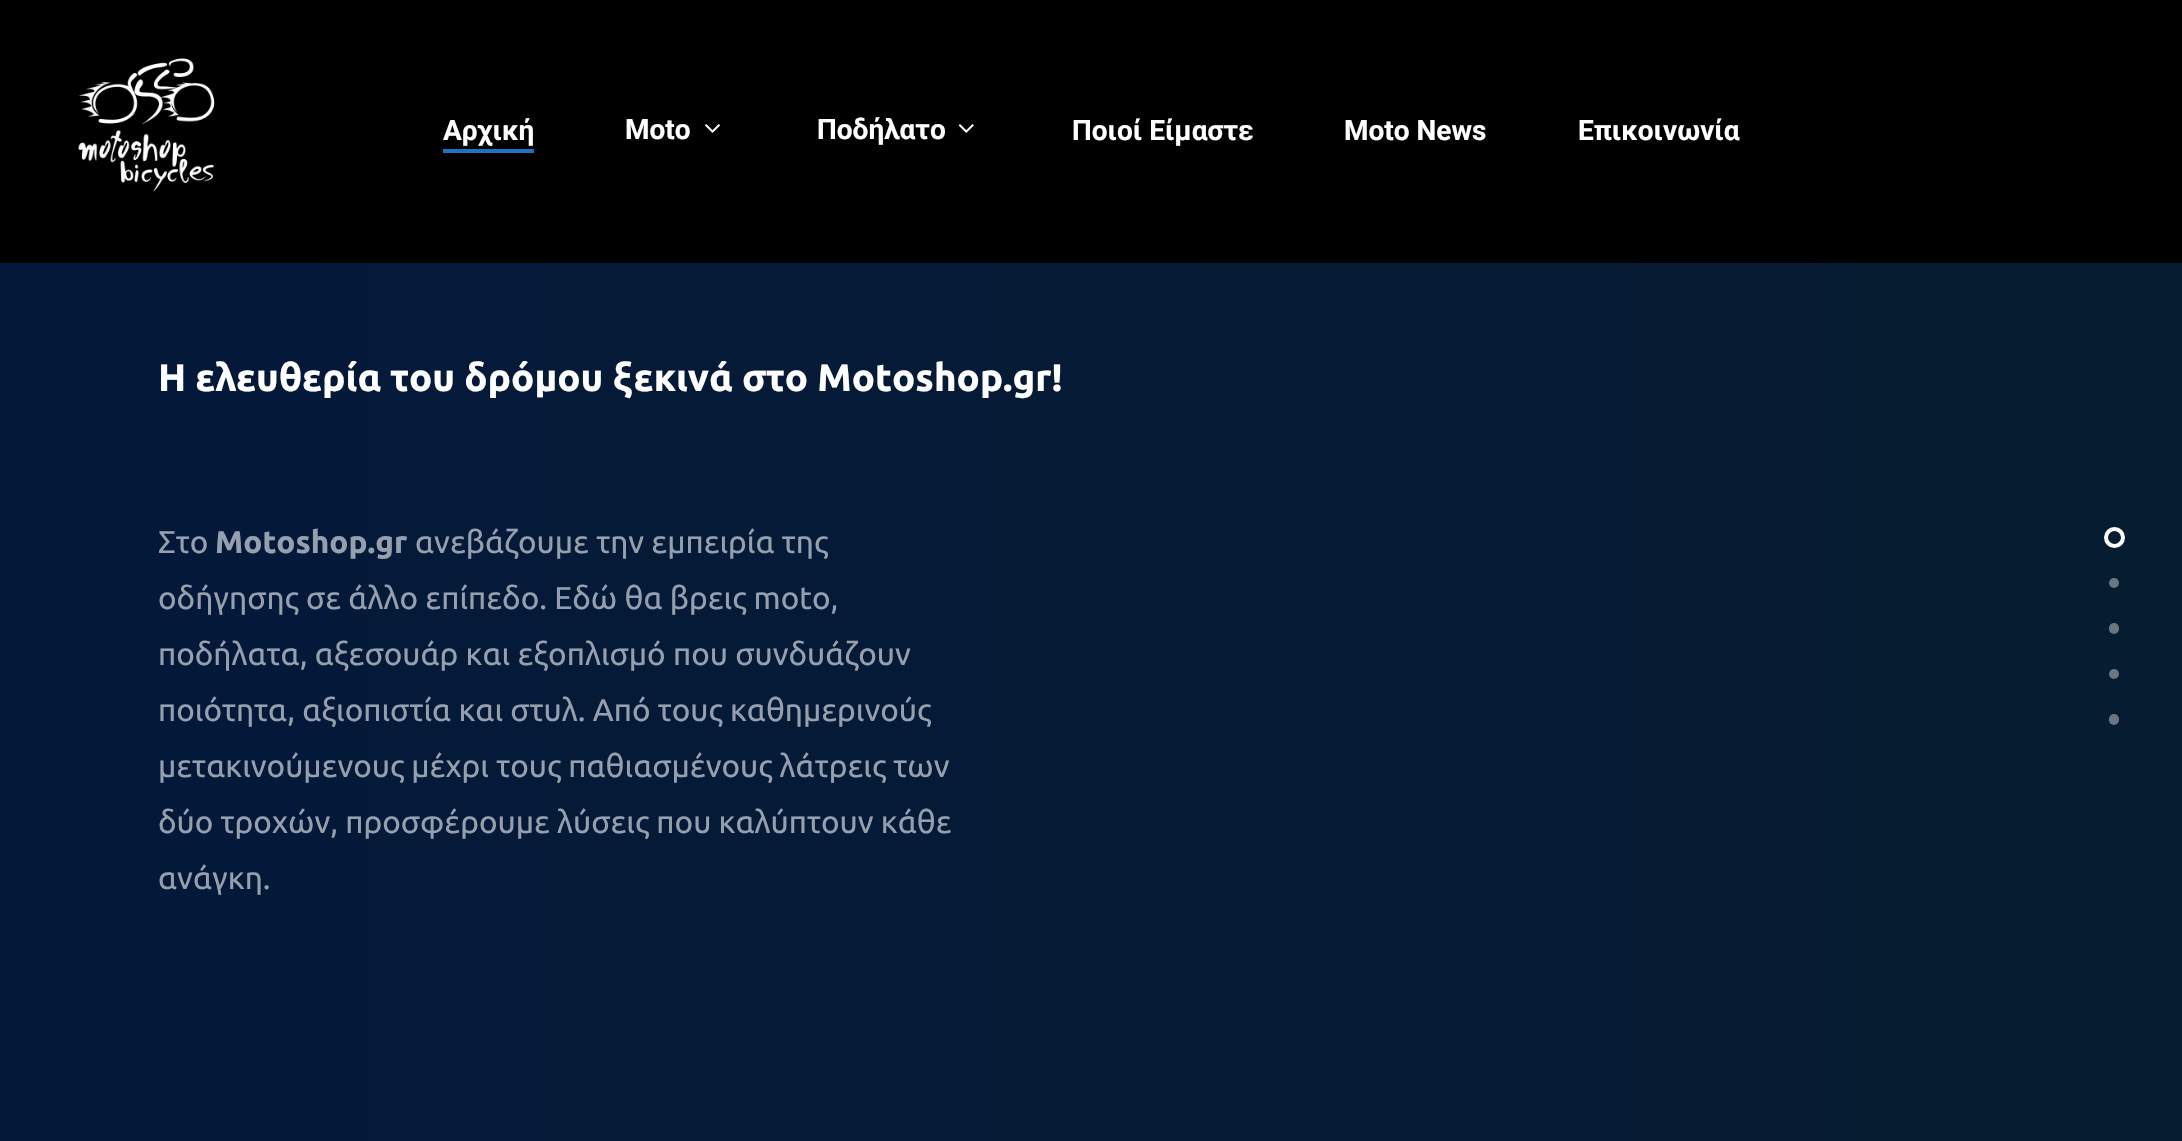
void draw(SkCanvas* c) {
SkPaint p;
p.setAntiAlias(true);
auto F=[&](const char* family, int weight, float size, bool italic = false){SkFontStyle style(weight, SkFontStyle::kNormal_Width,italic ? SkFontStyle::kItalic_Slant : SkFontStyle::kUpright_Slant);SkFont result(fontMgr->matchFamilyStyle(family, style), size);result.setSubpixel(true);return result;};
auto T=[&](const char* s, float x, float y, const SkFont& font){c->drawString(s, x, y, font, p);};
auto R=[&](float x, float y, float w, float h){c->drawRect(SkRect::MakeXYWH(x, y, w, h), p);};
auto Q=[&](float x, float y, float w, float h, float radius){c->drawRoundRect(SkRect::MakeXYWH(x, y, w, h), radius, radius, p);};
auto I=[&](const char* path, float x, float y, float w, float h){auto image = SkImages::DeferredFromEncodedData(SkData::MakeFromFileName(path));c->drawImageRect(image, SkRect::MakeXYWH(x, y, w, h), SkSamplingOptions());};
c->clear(0xff000000);
I("1.png",78,58,137,134);
auto f1 = F("Roboto",700,28);
p.setColor(0xffffffff);
T("Αρχική",443,140,f1);
p.setColor(0xff1e73be);
R(443,149,91,4);
p.setColor(0xffffffff);
T("Moto",625,139,f1);
I("2.png",705,124,15,9);
T("Ποδήλατο",817,139,f1);
I("3.png",958,124,16,9);
T("Ποιοί Είμαστε",1072,140,f1);
T("Moto News",1344,140,f1);
T("Επικοινωνία",1578,140,f1);
{
const SkColor colors[] = {0xff04193a,0xff061c30};
const float stops[] = {0,1};
const SkPoint ends[] = {{0,704}, {2182,703}};
p.setShader(SkGradientShader::MakeLinear(ends, colors, stops, 2, SkTileMode::kClamp));
p.setAlpha(255);
}
R(0,263,2182,878);
c->save();
c->clipRect(SkRect::MakeXYWH(158,361,903,38));
auto f2 = F("Ubuntu",700,38.4);
p.setShader(nullptr);
p.setColor(0xffffffff);
T("Η ελευθερία του δρόμου ξεκινά στο Motoshop.gr!",158,391,f2);
c->restore();
auto f3 = F("Ubuntu",400,31.5);
p.setColor(0xff969fad);
T("Στο",158,553,f3);
auto f4 = F("Ubuntu",700,31.5);
T("Motoshop.gr",215,553,f4);
T("ανεβάζουμε την εμπειρία της",415,553,f3);
T("οδήγησης σε άλλο επίπεδο. Εδώ θα βρεις moto,",158,609,f3);
T("ποδήλατα, αξεσουάρ και εξοπλισμό που συνδυάζουν",158,665,f3);
T("ποιότητα, αξιοπιστία και στυλ. Από τους καθημερινούς",158,721,f3);
T("μετακινούμενους μέχρι τους παθιασμένους λάτρεις των",158,777,f3);
T("δύο τροχών, προσφέρουμε λύσεις που καλύπτουν κάθε",158,833,f3);
T("ανάγκη.",158,889,f3);
p.setStroke(true);
p.setStrokeWidth(4);
p.setColor(0xffffffff);
c->drawCircle(2114.5,537.5,8.5,p);
p.setStroke(false);
p.setColor(0xff6a7783);
c->drawCircle(2114,583,5,p);
Q(2109,623,10,11,5);
c->drawCircle(2114,674,5,p);
Q(2109,714,10,11,5);
}
